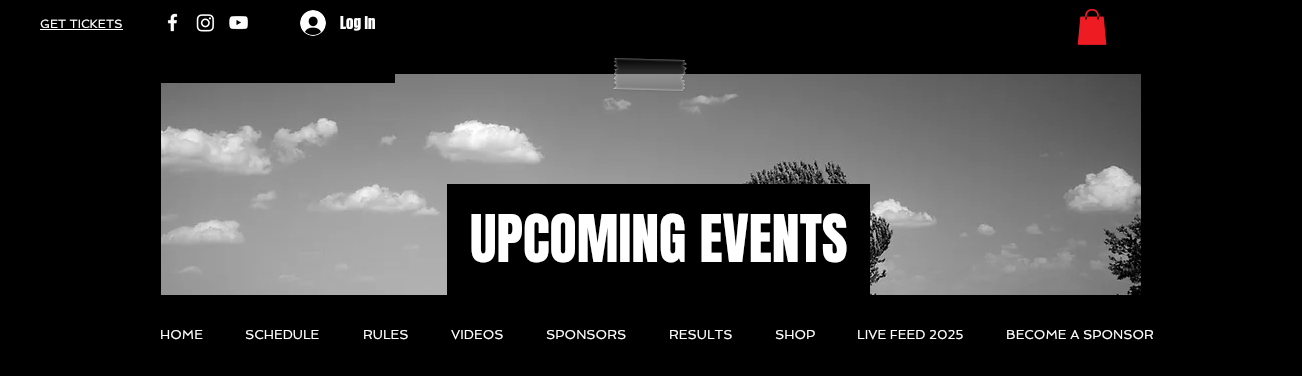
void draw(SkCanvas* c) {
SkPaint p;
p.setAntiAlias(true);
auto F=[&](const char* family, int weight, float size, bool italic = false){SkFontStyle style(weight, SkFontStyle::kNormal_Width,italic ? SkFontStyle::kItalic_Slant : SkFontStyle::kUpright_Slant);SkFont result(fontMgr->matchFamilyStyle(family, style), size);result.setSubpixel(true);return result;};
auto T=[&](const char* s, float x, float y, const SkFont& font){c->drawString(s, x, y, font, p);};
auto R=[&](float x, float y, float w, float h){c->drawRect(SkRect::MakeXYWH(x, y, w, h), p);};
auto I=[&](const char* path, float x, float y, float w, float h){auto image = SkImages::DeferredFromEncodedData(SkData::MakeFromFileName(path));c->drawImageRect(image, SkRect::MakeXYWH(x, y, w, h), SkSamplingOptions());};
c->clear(0xff000000);
auto f1 = F("Spinnaker",400,12);
p.setColor(0xffffffff);
T("GET TICKETS",40,28,f1);
R(40,29,83,1);
I("1.png",167,13,11,19);
I("2.png",196,14,19,18);
I("3.png",229,16,19,14);
I("4.png",300,10,26,26);
auto f2 = F("Anton",400,15);
T("Log In",340,29,f2);
I("7.png",161,74,980,221);
p.setColor(0xff000000);
R(161,74,234,9);
I("5.png",1077,9,30,36);
I("6.png",613,58,74,34);
R(447,184,423,111);
auto f3 = F("Anton",400,56);
p.setColor(0xffffffff);
T("UPCOMING EVENTS",470,262,f3);
auto f4 = F("Spinnaker",400,13);
T("HOME",160,339,f4);
T("SCHEDULE",245,339,f4);
T("RULES",363,339,f4);
T("VIDEOS",451,339,f4);
T("SPONSORS",546,339,f4);
T("RESULTS",669,339,f4);
T("SHOP",775,339,f4);
T("LIVE FEED 2025",857,339,f4);
T("BECOME A SPONSOR",1006,339,f4);
}
